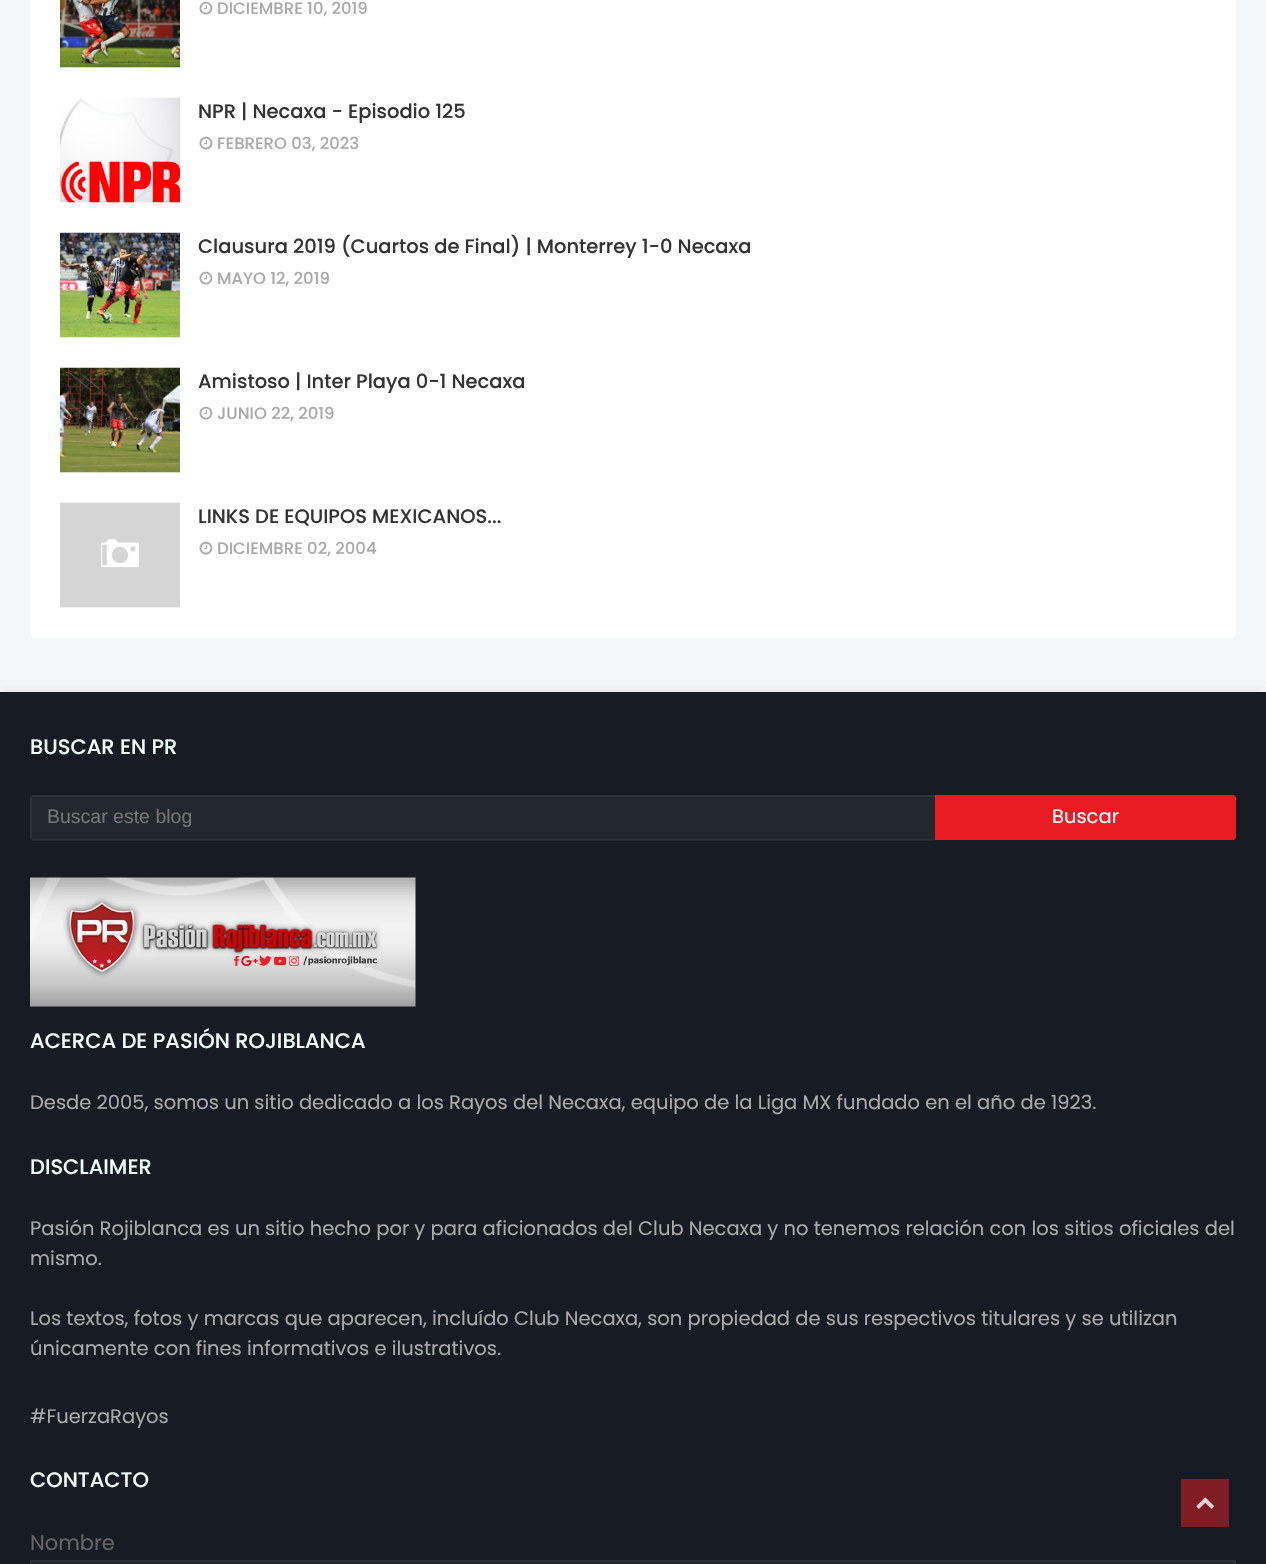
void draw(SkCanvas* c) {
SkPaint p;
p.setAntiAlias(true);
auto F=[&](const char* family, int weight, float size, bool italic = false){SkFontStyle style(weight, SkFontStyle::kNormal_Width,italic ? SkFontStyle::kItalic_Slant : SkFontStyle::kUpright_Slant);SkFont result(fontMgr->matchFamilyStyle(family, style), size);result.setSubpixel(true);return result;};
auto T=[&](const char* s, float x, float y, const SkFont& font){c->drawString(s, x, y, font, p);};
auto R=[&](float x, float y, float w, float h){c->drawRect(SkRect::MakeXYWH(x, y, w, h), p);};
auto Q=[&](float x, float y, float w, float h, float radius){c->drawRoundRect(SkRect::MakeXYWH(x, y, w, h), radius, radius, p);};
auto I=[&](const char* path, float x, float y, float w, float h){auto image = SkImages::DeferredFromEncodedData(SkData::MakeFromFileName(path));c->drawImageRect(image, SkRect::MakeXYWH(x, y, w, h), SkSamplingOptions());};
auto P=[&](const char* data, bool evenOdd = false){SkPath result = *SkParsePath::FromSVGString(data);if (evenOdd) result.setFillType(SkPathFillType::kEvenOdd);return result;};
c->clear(0xfff5f6f7);
p.setColor(0xffffffff);
Q(30,-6,1206,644,6);
p.setColor(0xfff8f8f8);
R(60,67,120,1);
I("1.png",60,0,120,68);
I("2.png",199,1,14,14);
auto f1 = F("Poppins",500,16.5);
p.setColor(0xffaaaaaa);
T("DICIEMBRE 10, 2019",217,14,f1);
p.setColor(0xfff8f8f8);
R(60,202,120,1);
I("3.png",60,97,120,106);
auto f2 = F("Poppins",500,19.5);
p.setColor(0xff333333);
T("NPR | Necaxa - Episodio 125",198,118,f2);
I("2.png",199,136,14,14);
p.setColor(0xffaaaaaa);
T("FEBRERO 03, 2023",217,149,f1);
p.setColor(0xfff8f8f8);
R(60,337,120,1);
I("4.png",60,232,120,106);
p.setColor(0xff333333);
T("Clausura 2019 (Cuartos de Final) | Monterrey 1-0 Necaxa",198,253,f2);
I("2.png",199,271,14,14);
p.setColor(0xffaaaaaa);
T("MAYO 12, 2019",217,284,f1);
p.setColor(0xfff8f8f8);
R(60,472,120,1);
I("5.png",60,367,120,106);
p.setColor(0xff333333);
T("Amistoso | Inter Playa 0-1 Necaxa",198,388,f2);
I("2.png",199,406,14,14);
p.setColor(0xffaaaaaa);
T("JUNIO 22, 2019",217,419,f1);
p.setColor(0xfff8f8f8);
R(60,607,120,1);
I("6.png",60,502,120,106);
p.setColor(0xff333333);
T("LINKS DE EQUIPOS MEXICANOS...",198,523,f2);
I("2.png",199,541,14,14);
p.setColor(0xffaaaaaa);
T("DICIEMBRE 02, 2004",217,554,f1);
p.setColor(0x0d000000);
p.setMaskFilter(SkMaskFilter::MakeBlur(kNormal_SkBlurStyle, 3));
c->drawRect(SkRect::MakeXYWH(0,689,1266,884),p);
p.setMaskFilter(nullptr);
p.setColor(0xff171c24);
R(0,692,1266,872);
auto f3 = F("Poppins",500,21);
p.setColor(0xfff1ffff);
T("BUSCAR EN PR",30,754,f3);
p.setColor(0xff23272f);
c->drawPath(P("M33 795h902v45h-902c-1.5 0-3-1.5-3-3v-39c0-1.5 1.5-3 3-3z"),p);
p.setColor(0xff2e3239);
R(32,795,903,2);
p.setColor(0x0dffffff);
R(32,839,903,2);
R(30,797,2,42);
auto f4 = F("Liberation Sans",400,19.5);
p.setColor(0xff757575);
T("Buscar este blog",47,823,f4);
p.setColor(0xffeb1b24);
c->drawPath(P("M935 795h298c1.5 0 3 1.5 3 3v39c0 1.5-1.5 3-3 3h-298z"),p);
auto f5 = F("Poppins",400,19.5);
p.setColor(0xffffffff);
T("Buscar",1052,823,f5);
I("7.png",30,877,386,130);
p.setColor(0xfff1ffff);
T("ACERCA DE PASIÓN ROJIBLANCA",30,1048,f3);
p.setColor(0xffaaaaaa);
T("Desde 2005, somos un sitio dedicado a los Rayos del Necaxa, equipo de la Liga MX fundado en el año de 1923.",30,1109,f5);
p.setColor(0xfff1ffff);
T("DISCLAIMER",30,1174,f3);
p.setColor(0xffaaaaaa);
T("Pasión Rojiblanca es un sitio hecho por y para aficionados del Club Necaxa y no tenemos relación con los sitios oficiales del",30,1235,f5);
T("mismo.",30,1265,f5);
T("Los textos, fotos y marcas que aparecen, incluído Club Necaxa, son propiedad de sus respectivos titulares y se utilizan",30,1325,f5);
T("únicamente con fines informativos e ilustrativos.",30,1355,f5);
T("#FuerzaRayos",30,1423,f5);
p.setColor(0xfff1ffff);
T("CONTACTO",30,1487,f3);
auto f6 = F("Poppins",400,21);
p.setColor(0xff656565);
T("Nombre",30,1550,f6);
p.setColor(0xff23272f);
Q(30,1560,1206,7,3);
p.setStroke(true);
p.setStrokeWidth(2);
p.setColor(0x0dffffff);
c->drawRect(SkRect::MakeXYWH(31,1561,1204,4),p);
p.setStroke(false);
p.setColor(0xff811c24);
R(1181,1479,48,48);
I("8.png",1196,1497,18,12);
}
